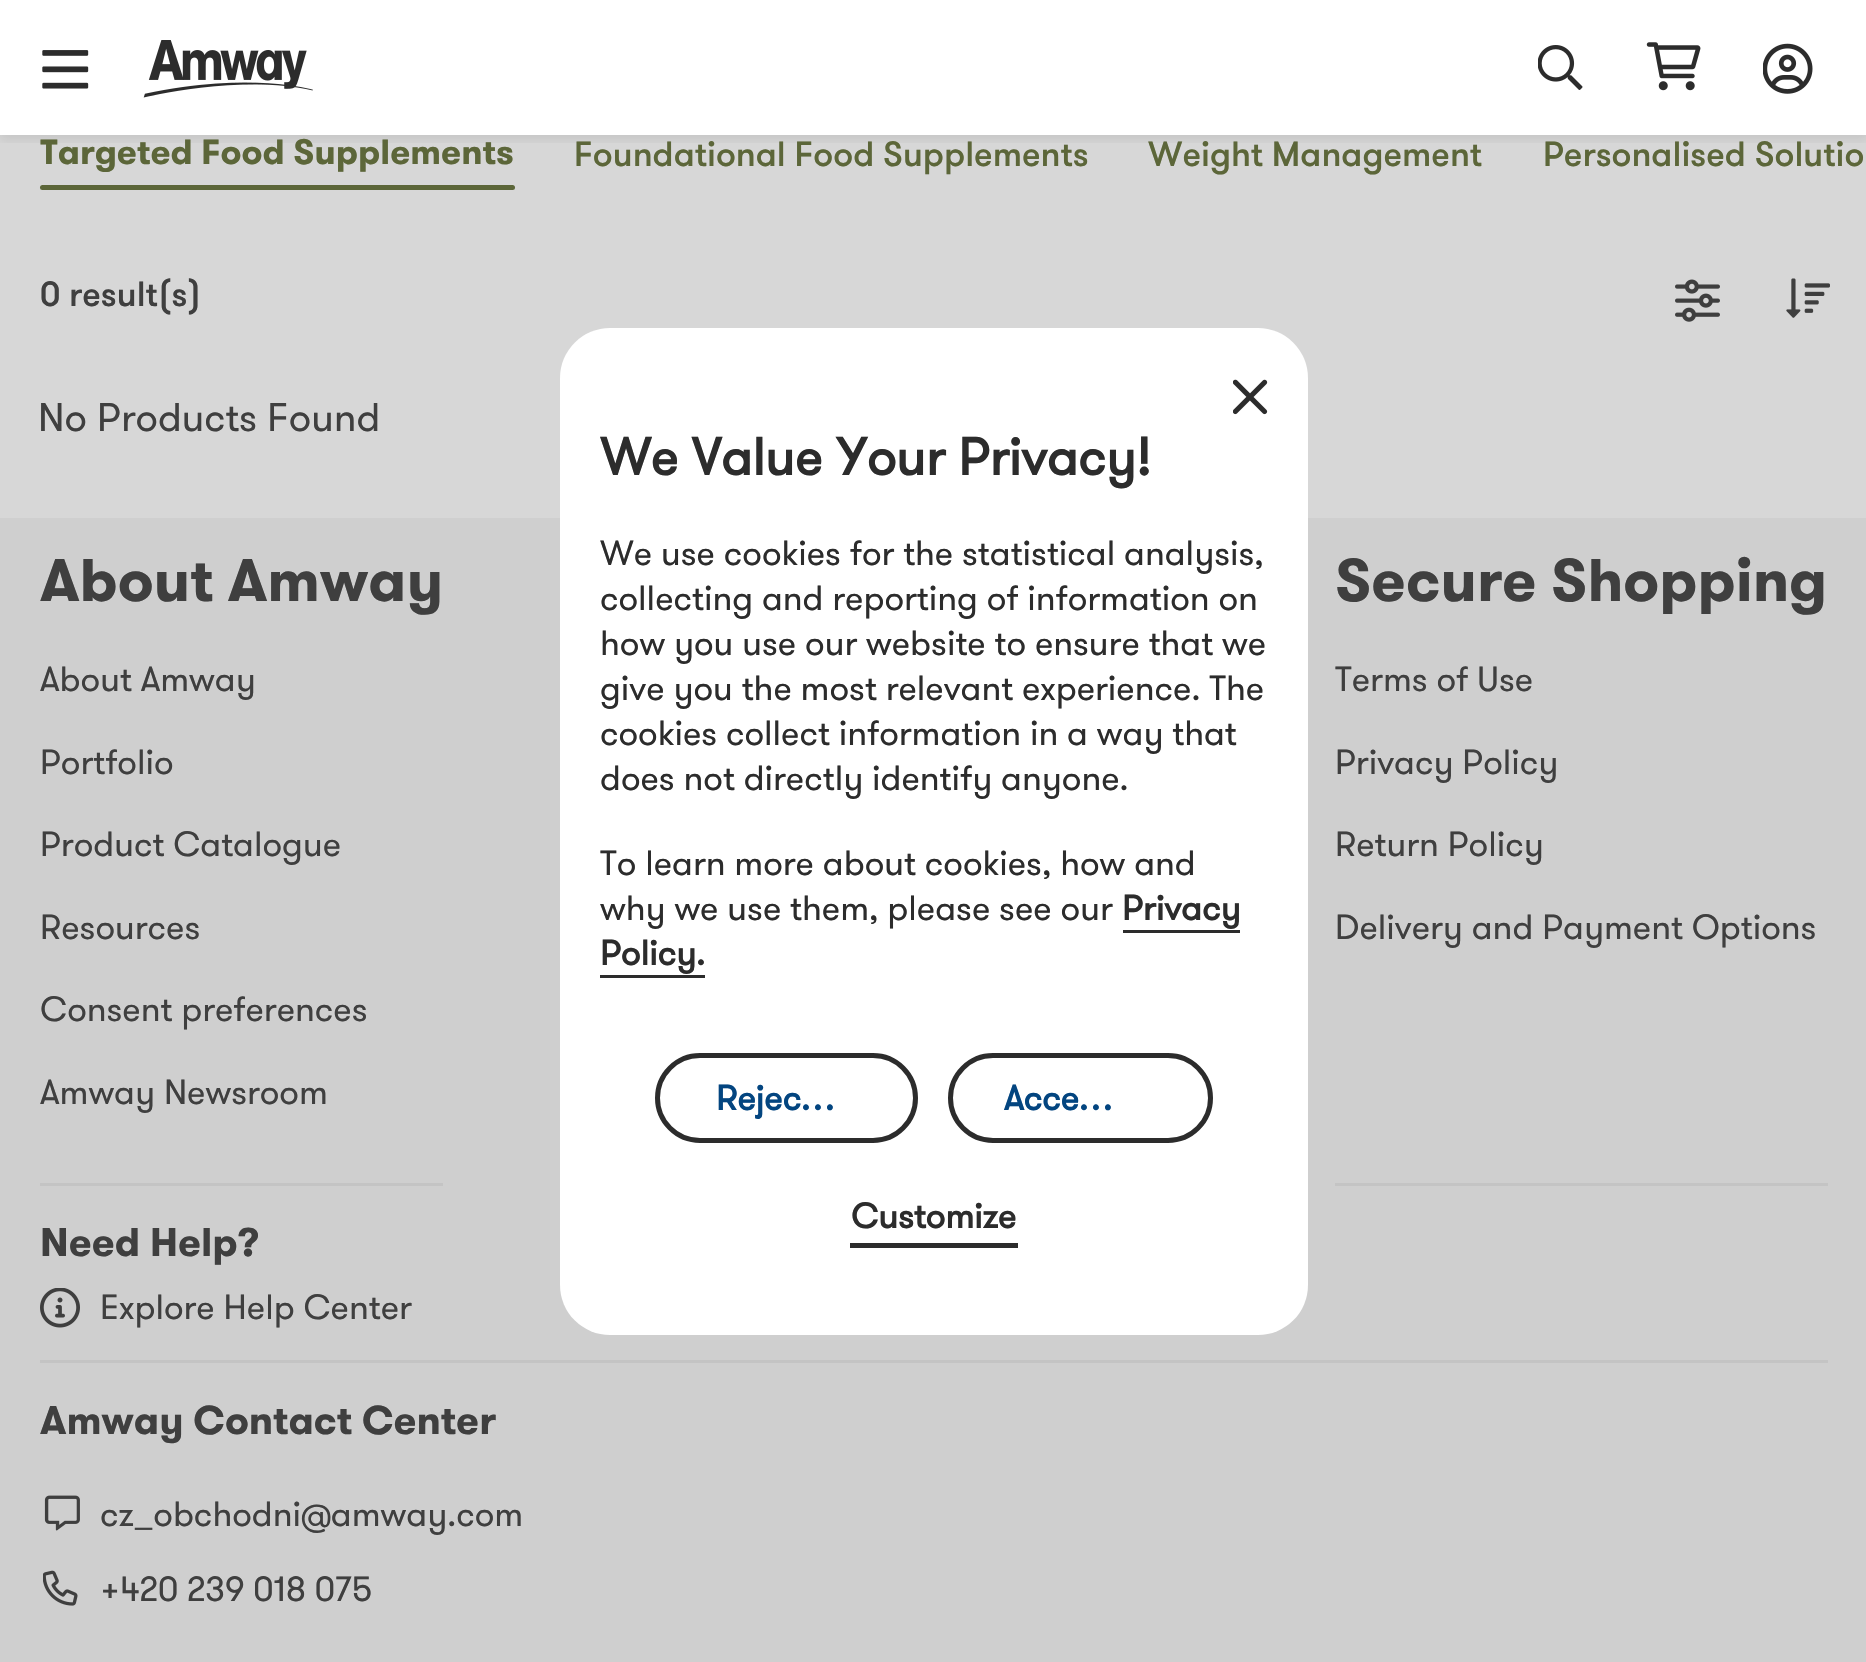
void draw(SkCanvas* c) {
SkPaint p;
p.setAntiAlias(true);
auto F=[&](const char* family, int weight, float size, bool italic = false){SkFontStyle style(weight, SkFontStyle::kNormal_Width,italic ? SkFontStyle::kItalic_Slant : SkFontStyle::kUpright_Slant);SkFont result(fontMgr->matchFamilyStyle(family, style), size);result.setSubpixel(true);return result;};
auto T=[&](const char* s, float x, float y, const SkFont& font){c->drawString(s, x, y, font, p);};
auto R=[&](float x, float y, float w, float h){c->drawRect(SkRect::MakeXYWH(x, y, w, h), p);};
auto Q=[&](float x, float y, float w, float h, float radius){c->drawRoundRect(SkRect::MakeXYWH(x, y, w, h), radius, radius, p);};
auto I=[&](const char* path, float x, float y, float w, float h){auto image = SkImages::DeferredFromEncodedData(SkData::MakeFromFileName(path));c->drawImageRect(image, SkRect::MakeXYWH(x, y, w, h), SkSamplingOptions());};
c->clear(0xffd7d7d7);
p.setColor(0xffffffff);
R(0,0,1866,135);
c->save();
c->clipRect(SkRect::MakeXYWH(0,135,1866,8));
p.setColor(0x14000000);
p.setMaskFilter(SkMaskFilter::MakeBlur(kNormal_SkBlurStyle, 5));
c->drawRect(SkRect::MakeXYWH(0,5,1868,135),p);
p.setMaskFilter(nullptr);
c->restore();
I("1.png",42,50,47,39);
I("2.png",143,40,170,58);
I("3.png",1538,45,45,45);
I("4.png",1646,42,55,49);
I("5.png",1763,43,50,51);
auto f1 = F("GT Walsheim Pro",700,35);
p.setColor(0xff5c6639);
T("Targeted Food Supplements",40,164,f1);
Q(40,185,475,5,2.5);
auto f2 = F("GT Walsheim Pro",500,35);
T("Foundational Food Supplements",574,166,f2);
T("Weight Management",1148,166,f2);
T("Personalised Solutio",1543,166,f2);
p.setColor(0xff3f3f3f);
T("0 result(s)",40,306,f2);
I("6.png",1675,279,45,43);
I("7.png",1786,278,44,40);
auto f3 = F("GT Walsheim Pro",400,40);
T("No Products Found",38,431,f3);
p.setColor(0xffcfcfcf);
R(0,518,1866,1144);
p.setColor(0xffc4c4c4);
R(40,1183,403,3);
auto f4 = F("GT Walsheim Pro",700,60);
p.setColor(0xff3f3f3f);
T("About Amway",40,601,f4);
auto f5 = F("GT Walsheim Pro",400,35);
T("About Amway",40,691,f5);
T("Portfolio",40,774,f5);
T("Product Catalogue",40,856,f5);
T("Resources",40,939,f5);
T("Consent preferences",40,1021,f5);
T("Amway Newsroom",40,1104,f5);
p.setColor(0xffc4c4c4);
R(1335,1183,493,3);
p.setColor(0xff3f3f3f);
T("Secure Shopping",1335,601,f4);
T("Terms of Use",1335,691,f5);
T("Privacy Policy",1335,774,f5);
T("Return Policy",1335,856,f5);
T("Delivery and Payment Options",1335,939,f5);
p.setColor(0xffc4c4c4);
R(40,1360,1788,3);
auto f6 = F("GT Walsheim Pro",700,40);
p.setColor(0xff3f3f3f);
T("Need Help?",40,1256,f6);
I("8.png",40,1288,40,40);
T("Explore Help Center",100,1319,f5);
T("Amway Contact Center",40,1434,f6);
I("9.png",44,1495,36,36);
T("cz_obchodni@amway.com",100,1526,f5);
I("10.png",43,1570,35,36);
T("+420 239 018 075",100,1601,f5);
p.setColor(0xffffffff);
Q(560,328,748,1007,50);
I("11.png",1233,379,35,36);
auto f7 = F("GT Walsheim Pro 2",700,52.5);
p.setColor(0xff2c2c2c);
T("We Value Your Privacy!",600,475,f7);
T("We use cookies for the statistical analysis,",600,565,f5);
T("collecting and reporting of information on",600,610,f5);
T("how you use our website to ensure that we",600,655,f5);
T("give you the most relevant experience. The",600,700,f5);
T("cookies collect information in a way that",600,745,f5);
T("does not directly identify anyone.",600,790,f5);
T("To learn more about cookies, how and",600,875,f5);
T("why we use them, please see our",600,920,f5);
auto f8 = F("GT Walsheim Pro 2",700,35);
T("Privacy",1122,920,f8);
R(1123,930,117,3);
T("Policy.",600,965,f8);
R(600,975,105,3);
p.setStroke(true);
p.setStrokeWidth(5);
c->drawRoundRect(SkRect::MakeXYWH(657.5,1055.5,258,85),42.5,42.5,p);
p.setStroke(false);
p.setColor(0xff034580);
T("Rejec…",716,1110,f8);
p.setStroke(true);
p.setColor(0xff2c2c2c);
c->drawRoundRect(SkRect::MakeXYWH(950.5,1055.5,260,85),42.5,42.5,p);
p.setStroke(false);
p.setColor(0xff034580);
T("Acce…",1004,1110,f8);
p.setColor(0xff2c2c2c);
R(850,1243,168,5);
T("Customize",851,1228,f8);
}
